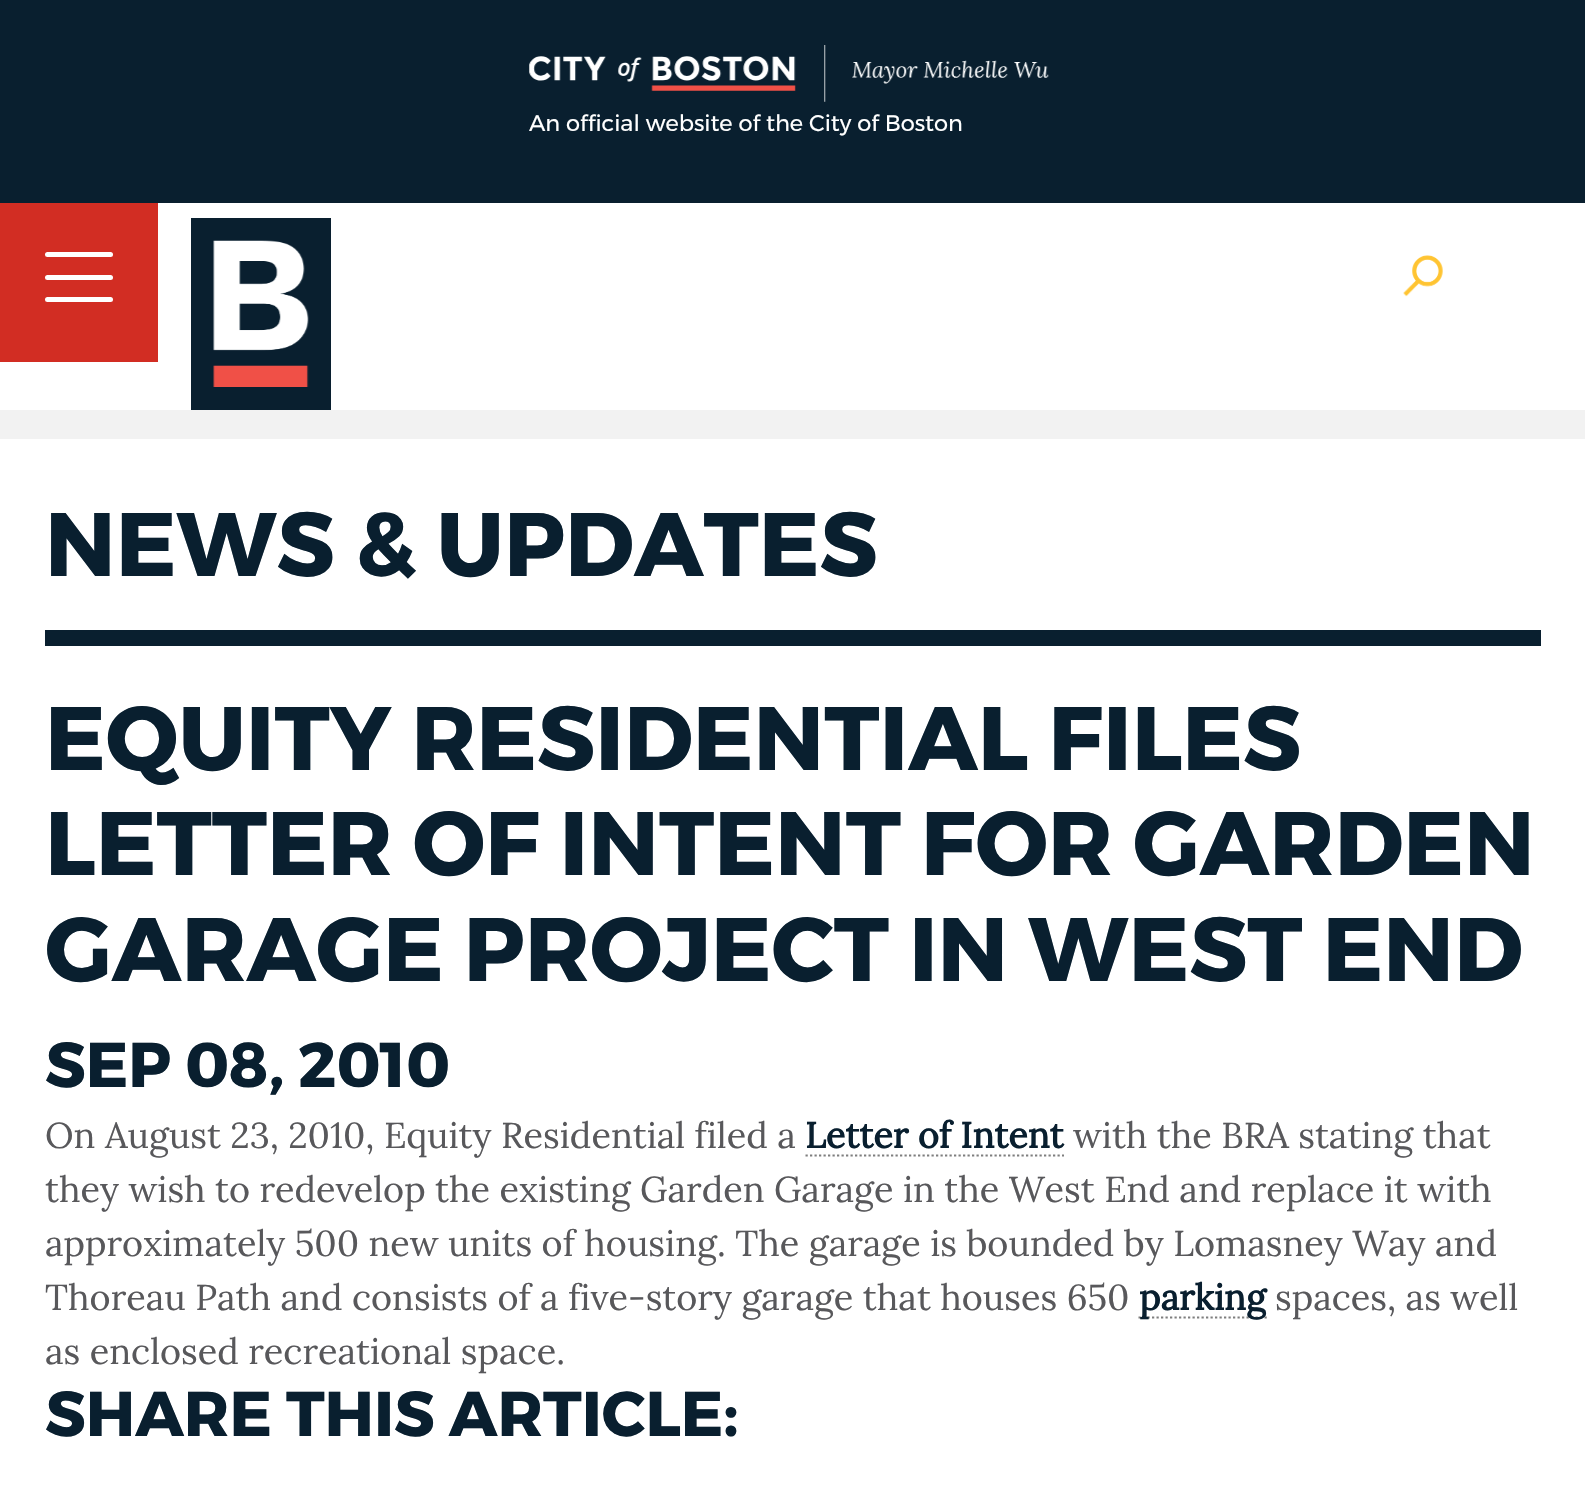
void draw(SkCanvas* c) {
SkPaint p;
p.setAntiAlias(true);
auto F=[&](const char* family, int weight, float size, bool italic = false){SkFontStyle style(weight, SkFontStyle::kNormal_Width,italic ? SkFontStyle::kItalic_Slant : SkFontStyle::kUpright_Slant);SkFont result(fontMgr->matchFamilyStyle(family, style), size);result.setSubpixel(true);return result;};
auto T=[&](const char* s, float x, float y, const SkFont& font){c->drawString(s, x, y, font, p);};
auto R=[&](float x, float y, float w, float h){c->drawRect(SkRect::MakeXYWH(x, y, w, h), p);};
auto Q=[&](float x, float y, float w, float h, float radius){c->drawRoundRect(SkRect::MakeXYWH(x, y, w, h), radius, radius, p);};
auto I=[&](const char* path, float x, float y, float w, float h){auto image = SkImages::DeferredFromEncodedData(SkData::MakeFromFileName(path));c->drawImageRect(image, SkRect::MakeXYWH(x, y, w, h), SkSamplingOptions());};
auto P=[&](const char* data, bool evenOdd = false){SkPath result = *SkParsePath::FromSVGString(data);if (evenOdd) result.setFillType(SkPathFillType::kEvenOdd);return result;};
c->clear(0xfff2f2f2);
p.setColor(0xff091f2f);
R(0,0,1585,203);
I("1.png",529,45,520,57);
auto f1 = F("Montserrat",400,22.5);
p.setColor(0xffffffff);
T("An official website of the City of Boston",529,131,f1);
R(0,203,1585,207);
p.setColor(0xff091f2f);
R(191,218,140,192);
I("2.png",213,240,96,147);
I("3.png",1403,255,40,42);
p.setColor(0xffd22d23);
R(0,203,158,159);
p.setColor(0xffffffff);
Q(45,297,68,5,2.5);
Q(45,252,68,5,2.5);
Q(45,275,68,5,2.5);
R(0,439,1585,1049);
p.setColor(0xff091f2f);
R(45,630,1496,16);
auto f2 = F("Montserrat",700,90);
T("NEWS & UPDATES",45,576,f2);
T("EQUITY RESIDENTIAL FILES",45,770,f2);
T("LETTER OF INTENT FOR GARDEN",45,875,f2);
T("GARAGE PROJECT IN WEST END",45,981,f2);
auto f3 = F("Montserrat",700,63);
T("SEP 08, 2010",45,1087,f3);
auto f4 = F("Lora",400,36);
p.setColor(0xff58585b);
T("On August 23, 2010, Equity Residential filed a",45,1148,f4);
auto f5 = F("Lora",700,36);
p.setColor(0xff091f2f);
T("Letter of Intent",805,1148,f5);
p.setStroke(true);
p.setStrokeWidth(2.2);
p.setColor(0xff7e7e7e);
p.setPathEffect(SkDashPathEffect::Make({{2.25f,2.25f}}, 0));
c->drawPath(P("M805.5 1155.5h258.5"),p);
p.setPathEffect(nullptr);
p.setStroke(false);
p.setColor(0xff58585b);
T("with the BRA stating that",1073,1148,f4);
T("they wish to redevelop the existing Garden Garage in the West End and replace it with",45,1202,f4);
T("approximately 500 new units of housing. The garage is bounded by Lomasney Way and",45,1256,f4);
T("Thoreau Path and consists of a five-story garage that houses 650",45,1310,f4);
p.setStroke(true);
p.setColor(0xff7e7e7e);
p.setPathEffect(SkDashPathEffect::Make({{2.25f,2.25f}}, 0));
c->drawPath(P("M1138.5 1317.5h128.5"),p);
p.setPathEffect(nullptr);
p.setStroke(false);
p.setColor(0xff091f2f);
T("parking",1139,1310,f5);
p.setColor(0xff58585b);
T("spaces, as well",1275,1310,f4);
T("as enclosed recreational space.",45,1364,f4);
p.setColor(0xff091f2f);
T("SHARE THIS ARTICLE:",45,1436,f3);
}
